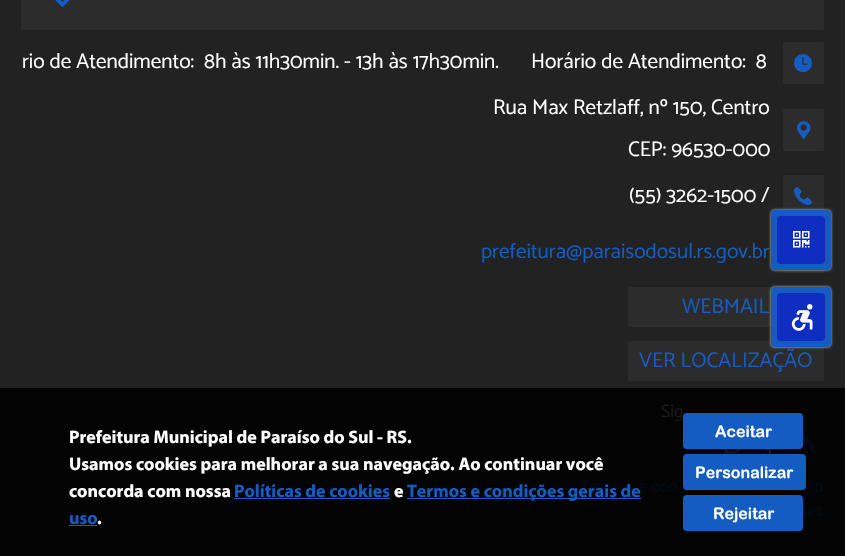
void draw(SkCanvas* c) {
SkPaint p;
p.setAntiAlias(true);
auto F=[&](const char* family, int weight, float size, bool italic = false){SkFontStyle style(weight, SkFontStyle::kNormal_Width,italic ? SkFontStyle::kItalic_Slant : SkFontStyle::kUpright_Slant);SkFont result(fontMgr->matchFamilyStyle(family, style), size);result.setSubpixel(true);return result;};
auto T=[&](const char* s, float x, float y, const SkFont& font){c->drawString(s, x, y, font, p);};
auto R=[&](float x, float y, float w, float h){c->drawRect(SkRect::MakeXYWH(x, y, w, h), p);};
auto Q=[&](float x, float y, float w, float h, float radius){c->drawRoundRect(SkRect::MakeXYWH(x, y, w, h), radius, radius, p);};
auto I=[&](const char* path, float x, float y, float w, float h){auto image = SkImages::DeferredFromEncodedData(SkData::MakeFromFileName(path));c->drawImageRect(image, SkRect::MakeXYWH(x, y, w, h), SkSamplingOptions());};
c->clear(0xff222222);
p.setColor(0xff030303);
R(0,388,845,168);
p.setColor(0xff2c2c2c);
Q(21,-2,803,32,2);
I("1.png",55,0,15,7);
auto f1 = F("Catamaran",400,21.2);
p.setColor(0xffffffff);
T("rio de Atendimento:  8h às 11h30min. - 13h às 17h30min.",22,68,f1);
T("Horário de Atendimento:  8",531,68,f1);
p.setColor(0xff2c2c2c);
Q(783,42,41,42,2);
I("2.png",794,54,18,19);
p.setColor(0xffffffff);
T("Rua Max Retzlaff, nº 150, Centro",493,114,f1);
T("CEP: 96530-000",628,156,f1);
p.setColor(0xff2c2c2c);
Q(783,109,41,42,2);
I("3.png",797,121,14,19);
p.setColor(0xffffffff);
T("(55) 3262-1500 /",629,202,f1);
p.setColor(0xff2c2c2c);
Q(783,175,41,42,2);
I("4.png",794,187,18,19);
p.setColor(0xff145cc1);
T("prefeitura@paraisodosul.rs.gov.br",481,258,f1);
p.setColor(0xff2c2c2c);
Q(783,231,41,42,2);
Q(628,287,196,40,2);
p.setColor(0xff145cc1);
T("WEBMAIL",682,313,f1);
p.setColor(0xff2c2c2c);
Q(628,341,196,40,2);
p.setColor(0xff145cc1);
T("VER LOCALIZAÇÃO",639,367,f1);
auto f2 = F("Catamaran",400,18);
p.setColor(0xff191919);
T("Sig",661,417,f2);
{
const SkColor colors[] = {0xff191919,0xff030303};
const float stops[] = {.6,.65};
p.setShader(SkGradientShader::MakeRadial({732,446}, 20, colors, stops, 2, SkTileMode::kClamp));
p.setAlpha(255);
}
R(718,449,28,5);
I("5.png",718,449,28,5);
{
const SkColor colors[] = {0xff191919,0xff030303};
const float stops[] = {.6,.65};
p.setShader(SkGradientShader::MakeRadial({771,446}, 20, colors, stops, 2, SkTileMode::kClamp));
p.setAlpha(255);
}
R(757,449,14,5);
I("6.png",757,449,12,5);
auto f3 = F("Roboto",400,16);
p.setShader(nullptr);
p.setColor(0xff020913);
T("Termos e con",580,492,f3);
T("so",806,492,f3);
T("ies",803,516,f3);
I("7.png",787,433,29,17);
auto f4 = F("Myriad",700,18);
p.setColor(0xffffffff);
T("Prefeitura Municipal de Paraíso do Sul - RS.",69,443,f4);
T("Usamos cookies para melhorar a sua navegação. Ao continuar você",69,470,f4);
T("concorda com nossa",69,497,f4);
p.setColor(0xff145cc1);
T("Políticas de cookies",234,497,f4);
R(234,498,156,1);
p.setColor(0xffffffff);
T("e",394,497,f4);
p.setColor(0xff145cc1);
R(407,498,234,1);
T("Termos e condições gerais de",407,497,f4);
T("uso",69,524,f4);
R(69,525,28,1);
p.setColor(0xffffffff);
T(".",97,524,f4);
p.setColor(0xff145cc1);
Q(683,413,120,36,4);
auto f5 = F("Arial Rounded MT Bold",700,16);
p.setColor(0xffffffff);
T("Aceitar",715,437,f5);
p.setColor(0xff145cc1);
Q(683,454,123,36,4);
p.setColor(0xffffffff);
T("Personalizar",695,478,f5);
p.setColor(0xff145cc1);
Q(683,495,120,36,4);
p.setColor(0xffffffff);
T("Rejeitar",713,519,f5);
p.setColor(0xffcbd0d6);
p.setMaskFilter(SkMaskFilter::MakeBlur(kNormal_SkBlurStyle, 1.5));
c->drawRoundRect(SkRect::MakeXYWH(771,210,60,60),4,4,p);
p.setMaskFilter(nullptr);
p.setColor(0xff145cc1);
Q(771,210,60,60,4);
p.setColor(0xff0f2dc0);
Q(777,216,48,48,4);
I("8.png",793,231,17,17);
p.setColor(0xffcbd0d6);
p.setMaskFilter(SkMaskFilter::MakeBlur(kNormal_SkBlurStyle, 1.5));
c->drawRoundRect(SkRect::MakeXYWH(771,287,60,60),4,4,p);
p.setMaskFilter(nullptr);
p.setColor(0xff145cc1);
Q(771,287,60,60,4);
p.setColor(0xff0f2dc0);
Q(777,293,48,48,4);
I("9.png",791,304,22,27);
}
